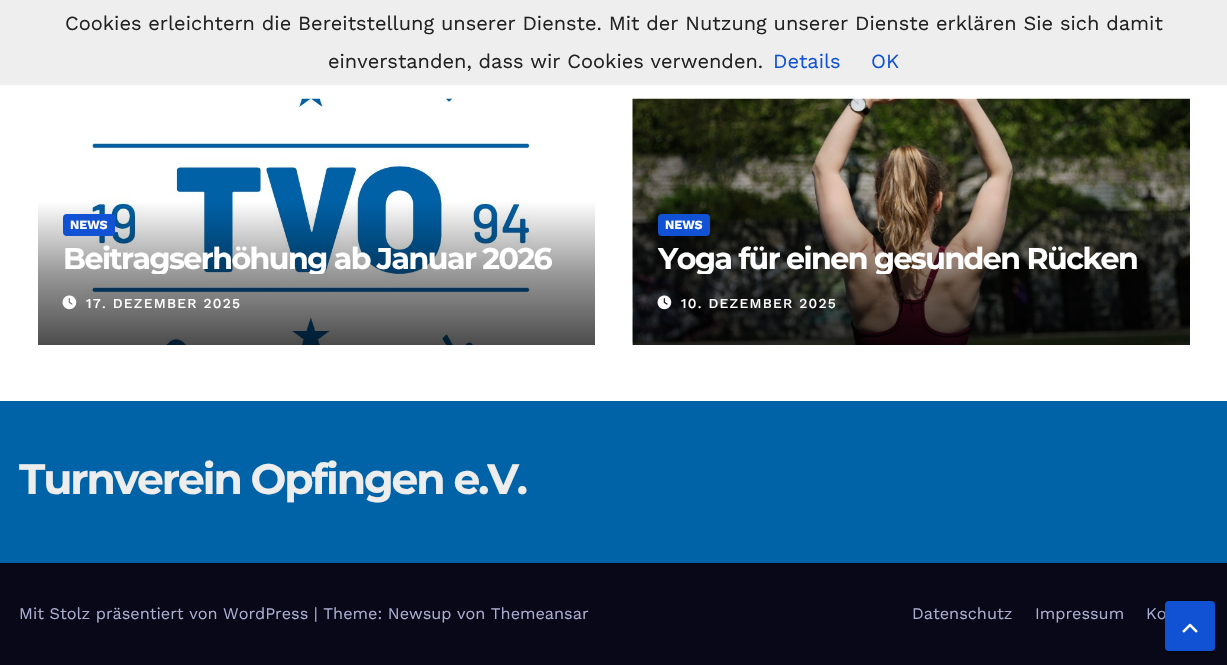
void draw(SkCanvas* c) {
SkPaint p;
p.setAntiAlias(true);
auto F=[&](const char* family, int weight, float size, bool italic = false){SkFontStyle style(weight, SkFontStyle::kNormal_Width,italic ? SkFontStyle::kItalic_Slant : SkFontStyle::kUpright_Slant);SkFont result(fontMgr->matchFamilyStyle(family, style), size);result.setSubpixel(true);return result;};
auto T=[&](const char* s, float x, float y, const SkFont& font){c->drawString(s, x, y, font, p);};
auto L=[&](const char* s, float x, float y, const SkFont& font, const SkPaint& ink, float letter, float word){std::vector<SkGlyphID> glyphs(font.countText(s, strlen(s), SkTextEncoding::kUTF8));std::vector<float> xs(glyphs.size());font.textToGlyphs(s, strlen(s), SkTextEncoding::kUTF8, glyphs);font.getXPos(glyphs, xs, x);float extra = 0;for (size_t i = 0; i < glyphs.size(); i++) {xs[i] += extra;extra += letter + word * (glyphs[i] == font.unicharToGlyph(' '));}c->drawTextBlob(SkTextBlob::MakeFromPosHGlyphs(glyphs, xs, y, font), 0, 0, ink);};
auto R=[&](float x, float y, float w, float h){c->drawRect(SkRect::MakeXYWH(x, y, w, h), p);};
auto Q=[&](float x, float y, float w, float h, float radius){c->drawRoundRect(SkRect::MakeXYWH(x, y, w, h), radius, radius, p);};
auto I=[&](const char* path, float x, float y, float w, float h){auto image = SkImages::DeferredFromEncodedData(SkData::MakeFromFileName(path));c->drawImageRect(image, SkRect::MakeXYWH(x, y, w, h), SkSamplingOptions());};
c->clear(0xffffffff);
p.setColor(0xffeeeeee);
R(0,0,1227,85);
auto f1 = F("Work Sans",400,20);
p.setColor(0xff222222);
T("Cookies erleichtern die Bereitstellung unserer Dienste. Mit der Nutzung unserer Dienste erklären Sie sich damit",65,30,f1);
T("einverstanden, dass wir Cookies verwenden.",328,68,f1);
p.setColor(0xff1151d3);
T("Details",773,68,f1);
T("OK",871,68,f1);
I("1.png",38,98,557,247);
Q(63,214,52,22,4);
auto f2 = F("Work Sans",700,12.5);
p.setColor(0xffffffff);
T("NEWS",70,229,f2);
c->save();
c->clipRect(SkRect::MakeXYWH(63,243,507,31));
auto f3 = F("Montserrat",700,30);
L("Beitragserhöhung ab Januar 2026",63,269,f3,p,-1.5,0);
c->restore();
I("2.png",62,295,15,15);
auto f4 = F("Work Sans",500,13.75);
L("17. DEZEMBER 2025",86,308,f4,p,1.25,0);
I("3.png",632,98,558,247);
p.setColor(0xff1151d3);
Q(658,214,52,22,4);
p.setColor(0xffffffff);
T("NEWS",665,229,f2);
c->save();
c->clipRect(SkRect::MakeXYWH(658,243,507,31));
L("Yoga für einen gesunden Rücken",658,269,f3,p,-1.5,0);
c->restore();
I("4.png",657,295,15,15);
L("10. DEZEMBER 2025",681,308,f4,p,1.25,0);
p.setColor(0xff0062a7);
R(0,401,1227,162);
auto f5 = F("Montserrat",700,42.5);
p.setColor(0xffededed);
L("Turnverein Opfingen e.V.",19,494,f5,p,-2.1,0);
p.setColor(0xff090818);
R(0,563,1227,102);
auto f6 = F("Work Sans",400,16.25);
p.setColor(0xffaaaed1);
T("Mit Stolz präsentiert von WordPress | Theme: Newsup von Themeansar",19,619,f6);
T("Datenschutz",912,619,f6);
T("Impressum",1035,619,f6);
T("Ko",1146,619,f6);
p.setColor(0x1f000000);
p.setMaskFilter(SkMaskFilter::MakeBlur(kNormal_SkBlurStyle, 3));
c->drawRoundRect(SkRect::MakeXYWH(1165,603,50,50),4,4,p);
p.setMaskFilter(nullptr);
p.setColor(0x24000000);
p.setMaskFilter(SkMaskFilter::MakeBlur(kNormal_SkBlurStyle, 1));
c->drawRoundRect(SkRect::MakeXYWH(1165,604,50,50),4,4,p);
p.setMaskFilter(nullptr);
p.setColor(0xff1151d3);
c->drawRoundRect(SkRect::MakeXYWH(1166.5,602.5,47,47),2.5,2.5,p);
p.setStroke(true);
p.setStrokeWidth(3);
c->drawRoundRect(SkRect::MakeXYWH(1166.5,602.5,47,47),2.5,2.5,p);
I("5.png",1182,623,16,10);
}
